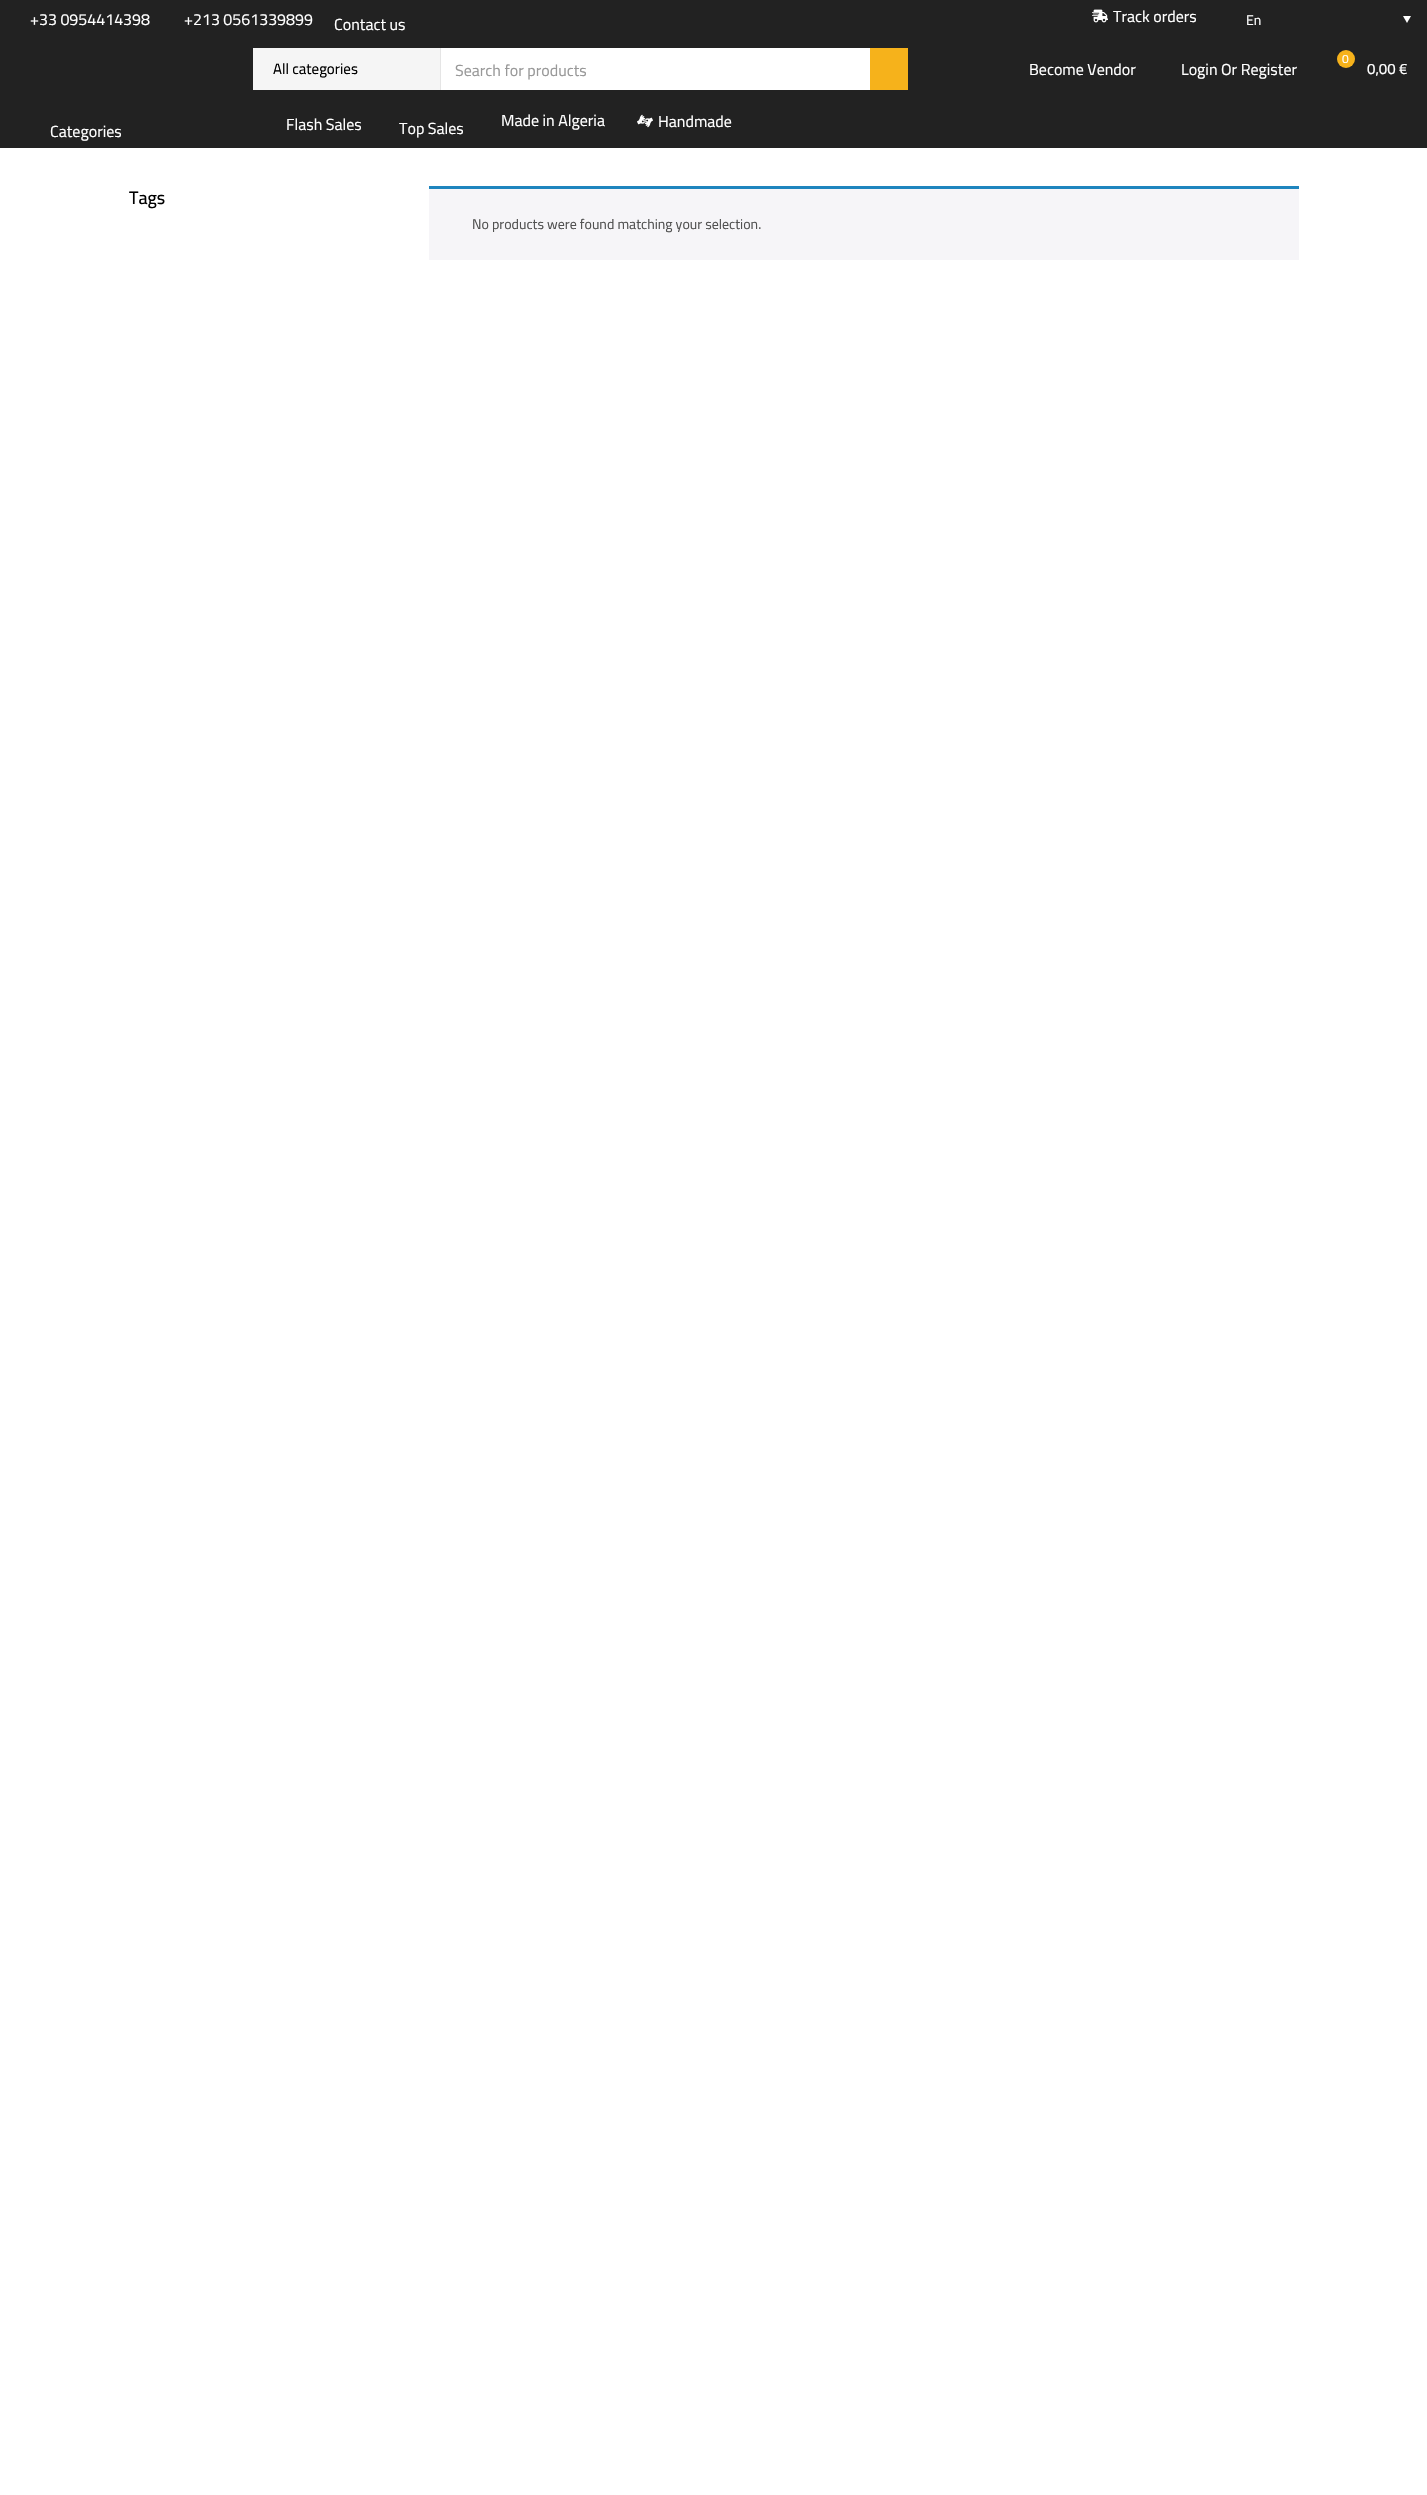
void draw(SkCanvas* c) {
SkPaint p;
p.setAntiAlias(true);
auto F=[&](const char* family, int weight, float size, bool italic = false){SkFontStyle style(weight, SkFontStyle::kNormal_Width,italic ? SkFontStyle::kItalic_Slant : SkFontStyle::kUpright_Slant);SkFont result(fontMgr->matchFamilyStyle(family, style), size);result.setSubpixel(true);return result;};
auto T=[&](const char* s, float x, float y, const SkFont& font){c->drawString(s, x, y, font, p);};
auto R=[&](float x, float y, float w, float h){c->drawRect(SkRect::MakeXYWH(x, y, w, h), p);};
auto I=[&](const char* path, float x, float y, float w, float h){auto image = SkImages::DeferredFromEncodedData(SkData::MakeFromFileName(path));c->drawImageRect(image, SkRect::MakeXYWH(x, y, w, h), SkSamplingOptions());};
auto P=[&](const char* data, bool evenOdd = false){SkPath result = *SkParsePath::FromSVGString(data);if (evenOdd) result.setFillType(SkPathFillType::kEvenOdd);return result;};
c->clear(0xffffffff);
p.setColor(0xff222222);
R(0,0,1427,38);
auto f1 = F("Cairo",400,16);
p.setColor(0xffffffff);
T("+33 0954414398",30,25,f1);
T("+213 0561339899",184,25,f1);
T("Contact us",334,30,f1);
I("1.png",1092,9,16,14);
T("Track orders",1113,22,f1);
auto f2 = F("Cairo",400,14);
T("En",1246,25,f2);
c->drawPath(P("M1403 16h8l-4 7z"),p);
p.setColor(0xff222222);
R(0,38,1427,110);
p.setColor(0xffffffff);
R(441,48,429,42);
p.setColor(0xfff5f5f5);
R(253,48,187,42);
p.setColor(0xffe5e5e5);
R(440,48,1,42);
auto f3 = F("Cairo",400,15);
p.setColor(0xff000000);
T("All categories",273,74,f3);
p.setColor(0xff999999);
T("Search for products",455,76,f1);
p.setColor(0xfff6b21b);
R(870,48,38,42);
p.setColor(0xffffffff);
T("Become Vendor",1029,75,f1);
T("Login Or Register",1181,75,f1);
p.setColor(0xfff6b21b);
c->drawCircle(1346,59,9,p);
auto f4 = F("Cairo",400,12);
p.setColor(0xffffffff);
T("0",1342,63,f4);
auto f5 = F("Cairo",500,15);
T("0,00 €",1367,74,f5);
T("Categories",50,137,f1);
T("Flash Sales",286,130,f1);
T("Top Sales",399,134,f1);
T("Made in Algeria",501,126,f1);
I("2.png",637,114,16,14);
T("Handmade",658,127,f1);
auto f6 = F("Cairo",500,18);
p.setColor(0xff000000);
T("Tags",129,204,f6);
p.setColor(0xfff6f5f8);
R(429,189,870,71);
p.setColor(0xff1e85be);
R(429,186,870,3);
p.setColor(0xff515151);
T("No products were found matching your selection.",472,229,f2);
}
